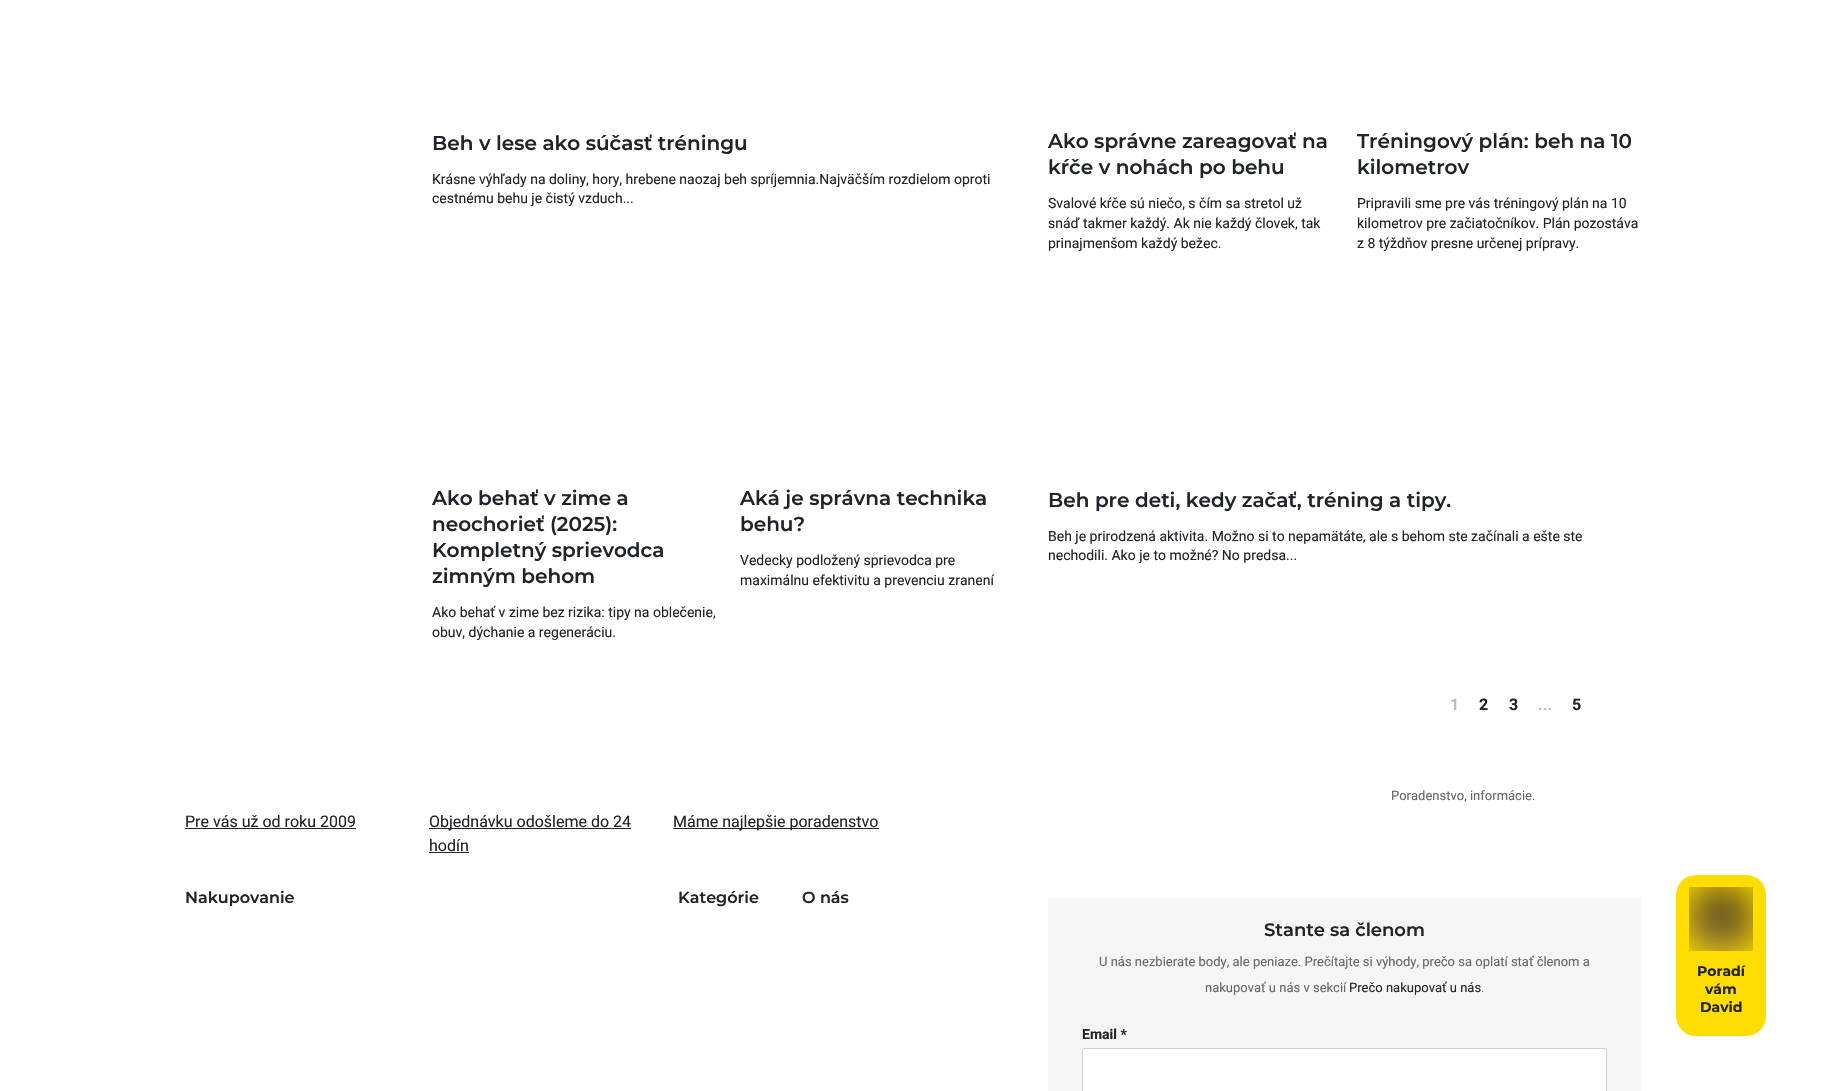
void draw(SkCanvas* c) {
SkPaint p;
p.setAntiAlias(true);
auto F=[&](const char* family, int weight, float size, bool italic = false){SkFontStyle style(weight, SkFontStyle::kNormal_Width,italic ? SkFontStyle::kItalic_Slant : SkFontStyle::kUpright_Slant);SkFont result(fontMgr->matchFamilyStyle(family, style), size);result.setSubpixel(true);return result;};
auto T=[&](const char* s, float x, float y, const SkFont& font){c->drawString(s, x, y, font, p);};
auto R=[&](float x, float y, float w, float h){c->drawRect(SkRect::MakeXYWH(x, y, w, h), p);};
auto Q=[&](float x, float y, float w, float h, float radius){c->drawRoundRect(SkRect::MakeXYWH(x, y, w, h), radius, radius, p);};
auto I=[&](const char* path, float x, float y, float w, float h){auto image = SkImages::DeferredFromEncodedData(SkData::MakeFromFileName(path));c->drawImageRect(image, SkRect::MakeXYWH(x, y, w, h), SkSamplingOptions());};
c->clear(0xffffffff);
auto f1 = F("Montserrat",600,20);
p.setColor(0xff202329);
T("Beh v lese ako súčasť tréningu",432,150,f1);
auto f2 = F("Roboto",400,14);
T("Krásne výhľady na doliny, hory, hrebene naozaj beh spríjemnia.Najväčším rozdielom oproti",432,184,f2);
T("cestnému behu je čistý vzduch...",432,203,f2);
T("Ako správne zareagovať na",1048,148,f1);
T("kŕče v nohách po behu",1048,174,f1);
T("Svalové kŕče sú niečo, s čím sa stretol už",1048,208,f2);
T("snáď takmer každý. Ak nie každý človek, tak",1048,228,f2);
T("prinajmenšom každý bežec.",1048,248,f2);
T("Tréningový plán: beh na 10",1357,148,f1);
T("kilometrov",1357,174,f1);
T("Pripravili sme pre vás tréningový plán na 10",1357,208,f2);
T("kilometrov pre začiatočníkov. Plán pozostáva",1357,228,f2);
T("z 8 týždňov presne určenej prípravy.",1357,248,f2);
T("Ako behať v zime a",432,505,f1);
T("neochorieť (2025):",432,531,f1);
T("Kompletný sprievodca",432,557,f1);
T("zimným behom",432,583,f1);
T("Ako behať v zime bez rizika: tipy na oblečenie,",432,617,f2);
T("obuv, dýchanie a regeneráciu.",432,637,f2);
T("Aká je správna technika",740,505,f1);
T("behu?",740,531,f1);
T("Vedecky podložený sprievodca pre",740,565,f2);
T("maximálnu efektivitu a prevenciu zranení",740,585,f2);
T("Beh pre deti, kedy začať, tréning a tipy.",1048,507,f1);
T("Beh je prirodzená aktivita. Možno si to nepamätáte, ale s behom ste začínali a ešte ste",1048,541,f2);
T("nechodili. Ako je to možné? No predsa...",1048,560,f2);
auto f3 = F("Roboto",700,16);
p.setColor(0xffbcbdbf);
T("1",1450,710,f3);
p.setColor(0xff202329);
T("2",1479,710,f3);
T("3",1509,710,f3);
p.setColor(0xffbcbdbf);
T("...",1538,710,f3);
p.setColor(0xff202329);
T("5",1572,710,f3);
auto f4 = F("Roboto",400,13);
p.setColor(0xff666666);
T("Poradenstvo, informácie.",1391,800,f4);
auto f5 = F("Roboto",400,16);
p.setColor(0xff202329);
T("Pre vás už od roku 2009",185,827,f5);
R(185,828,171,1);
R(429,828,202,1);
T("Objednávku odošleme do 24",429,827,f5);
T("hodín",429,851,f5);
R(429,852,40,1);
R(673,828,206,1);
T("Máme najlepšie poradenstvo",673,827,f5);
auto f6 = F("Montserrat",600,16);
T("Nakupovanie",185,903,f6);
T("Kategórie",678,903,f6);
T("O nás",802,903,f6);
p.setColor(0xfff5f5f5);
R(1048,898,593,193);
auto f7 = F("Montserrat",600,18);
p.setColor(0xff202329);
T("Stante sa členom",1264,936,f7);
p.setColor(0xff666666);
T("U nás nezbierate body, ale peniaze. Prečítajte si výhody, prečo sa oplatí stať členom a",1099,966,f4);
T("nakupovať u nás v sekcií",1205,992,f4);
p.setColor(0xff202329);
T("Prečo nakupovať u nás",1349,992,f4);
p.setColor(0xff666666);
T(".",1481,992,f4);
auto f8 = F("Roboto",700,14);
p.setColor(0xff202329);
T("Email *",1082,1039,f8);
p.setColor(0xffffffff);
c->drawRoundRect(SkRect::MakeXYWH(1082.5,1048.5,524,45),1.5,1.5,p);
p.setStroke(true);
p.setStrokeWidth(1);
p.setColor(0xffd1d1d1);
c->drawRoundRect(SkRect::MakeXYWH(1082.5,1048.5,524,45),1.5,1.5,p);
p.setStroke(false);
p.setColor(0xffffdd00);
Q(1676,875,90,161,20);
I("1.png",1689,887,64,64);
auto f9 = F("Montserrat",700,14);
p.setColor(0xff202329);
T("Poradí",1697,976,f9);
T("vám",1705,994,f9);
T("David",1700,1012,f9);
}
